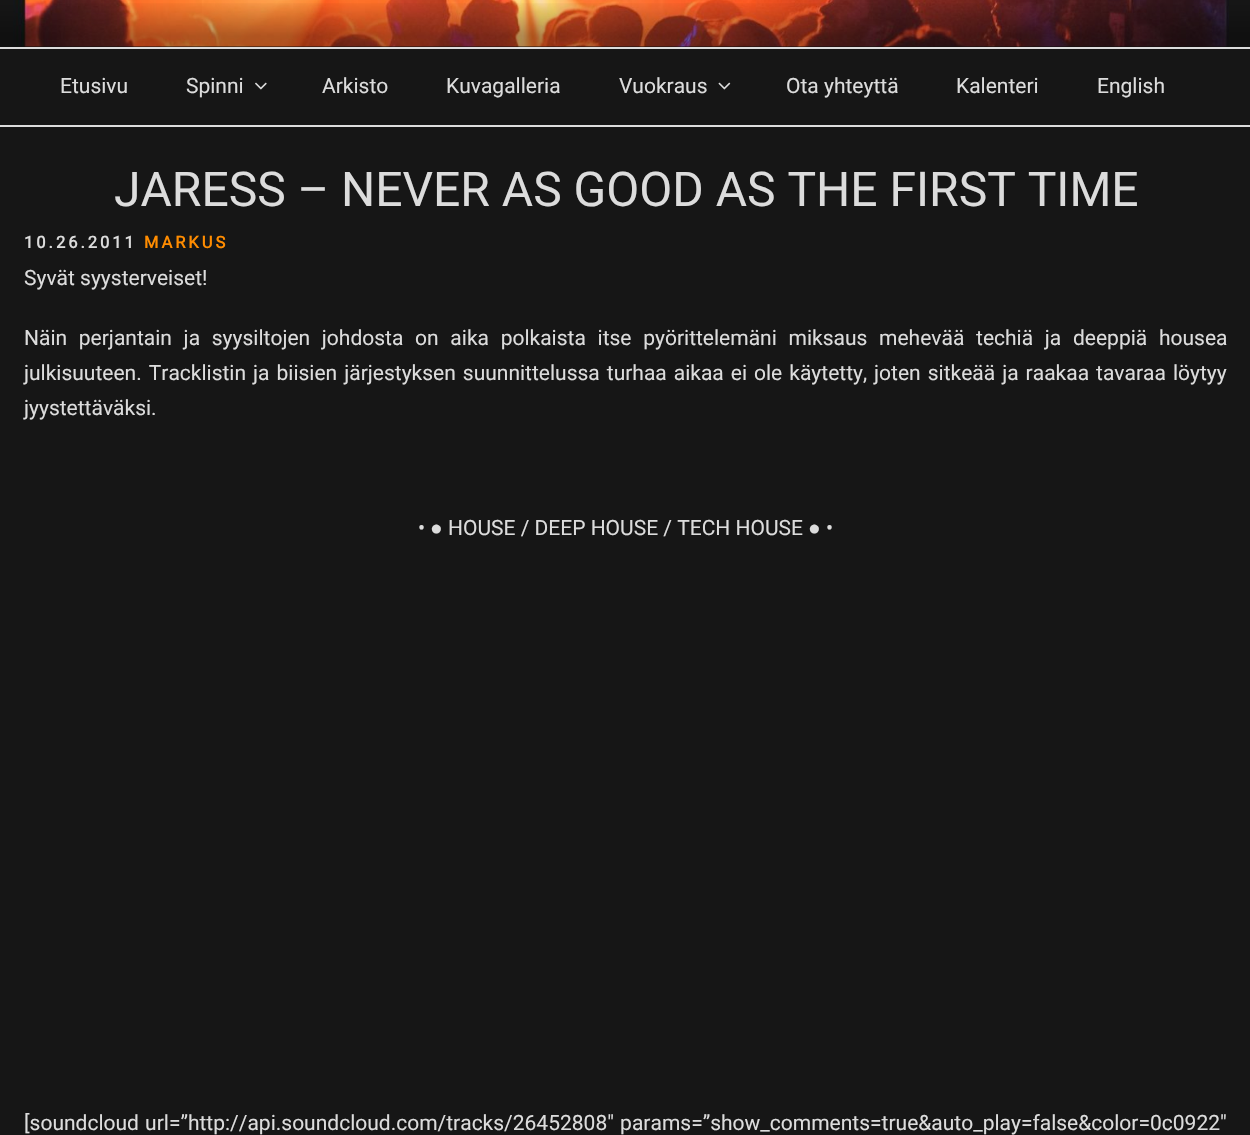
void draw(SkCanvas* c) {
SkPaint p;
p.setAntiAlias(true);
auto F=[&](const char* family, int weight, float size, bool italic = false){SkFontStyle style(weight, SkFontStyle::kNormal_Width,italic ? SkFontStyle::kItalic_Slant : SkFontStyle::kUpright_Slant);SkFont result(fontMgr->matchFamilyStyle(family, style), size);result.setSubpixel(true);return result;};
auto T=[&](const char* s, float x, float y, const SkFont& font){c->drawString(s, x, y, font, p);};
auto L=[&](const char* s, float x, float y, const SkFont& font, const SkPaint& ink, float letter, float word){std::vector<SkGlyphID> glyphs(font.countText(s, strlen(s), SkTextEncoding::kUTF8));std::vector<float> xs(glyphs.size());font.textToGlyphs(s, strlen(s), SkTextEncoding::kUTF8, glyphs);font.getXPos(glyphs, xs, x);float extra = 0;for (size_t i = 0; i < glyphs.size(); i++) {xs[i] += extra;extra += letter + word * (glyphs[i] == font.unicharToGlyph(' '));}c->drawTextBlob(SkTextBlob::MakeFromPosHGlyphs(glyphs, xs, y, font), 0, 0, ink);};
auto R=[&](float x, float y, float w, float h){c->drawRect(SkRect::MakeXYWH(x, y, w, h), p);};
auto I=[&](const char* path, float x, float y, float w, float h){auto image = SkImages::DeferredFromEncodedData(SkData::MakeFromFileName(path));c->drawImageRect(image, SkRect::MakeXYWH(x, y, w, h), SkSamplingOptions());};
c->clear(0xff161616);
I("1.png",13,0,1216,47);
{
const SkColor colors[] = {0x00000000,0x4d000000,0x4d000000};
const float stops[] = {0,.75,1};
const SkPoint ends[] = {{626,0}, {626,48}};
p.setShader(SkGradientShader::MakeLinear(ends, colors, stops, 3, SkTileMode::kClamp));
p.setAlpha(255);
}
R(0,3,1250,44);
p.setShader(nullptr);
p.setColor(0xffdcdcdc);
R(0,47,1250,2);
R(0,125,1250,2);
auto f1 = F("Roboto",400,21);
T("Etusivu",60,93,f1);
T("Spinni",186,93,f1);
I("2.png",255,82,12,8);
T("Arkisto",322,93,f1);
T("Kuvagalleria",446,93,f1);
T("Vuokraus",619,93,f1);
I("3.png",718,82,13,8);
T("Ota yhteyttä",786,93,f1);
T("Kalenteri",956,93,f1);
T("English",1097,93,f1);
auto f2 = F("Roboto",400,48);
T("JARESS – NEVER AS GOOD AS THE FIRST TIME",114,206,f2);
auto f3 = F("Roboto",700,16.5);
L("10.26.2011",24,248,f3,p,3,0);
p.setColor(0xffff8c00);
L("MARKUS",144,248,f3,p,3,0);
p.setColor(0xffdcdcdc);
T("Syvät syysterveiset!",24,285,f1);
L("Näin perjantain ja syysiltojen johdosta on aika polkaista itse pyörittelemäni miksaus mehevää techiä ja deeppiä housea",24,345,f1,p,0,6.5);
L("julkisuuteen. Tracklistin ja biisien järjestyksen suunnittelussa turhaa aikaa ei ole käytetty, joten sitkeää ja raakaa tavaraa löytyy",24,380,f1,p,0,1.8);
T("jyystettäväksi.",24,415,f1);
T("•",418,535,f1);
auto f4 = F("Liberation Serif",400,21);
T("●",430,535,f4);
T("HOUSE / DEEP HOUSE / TECH HOUSE",448,535,f1);
T("●",808,535,f4);
T("•",826,535,f1);
L("[soundcloud url=”http://api.soundcloud.com/tracks/26452808″ params=”show_comments=true&auto_play=false&color=0c0922″",24,1130,f1,p,0,1);
}
